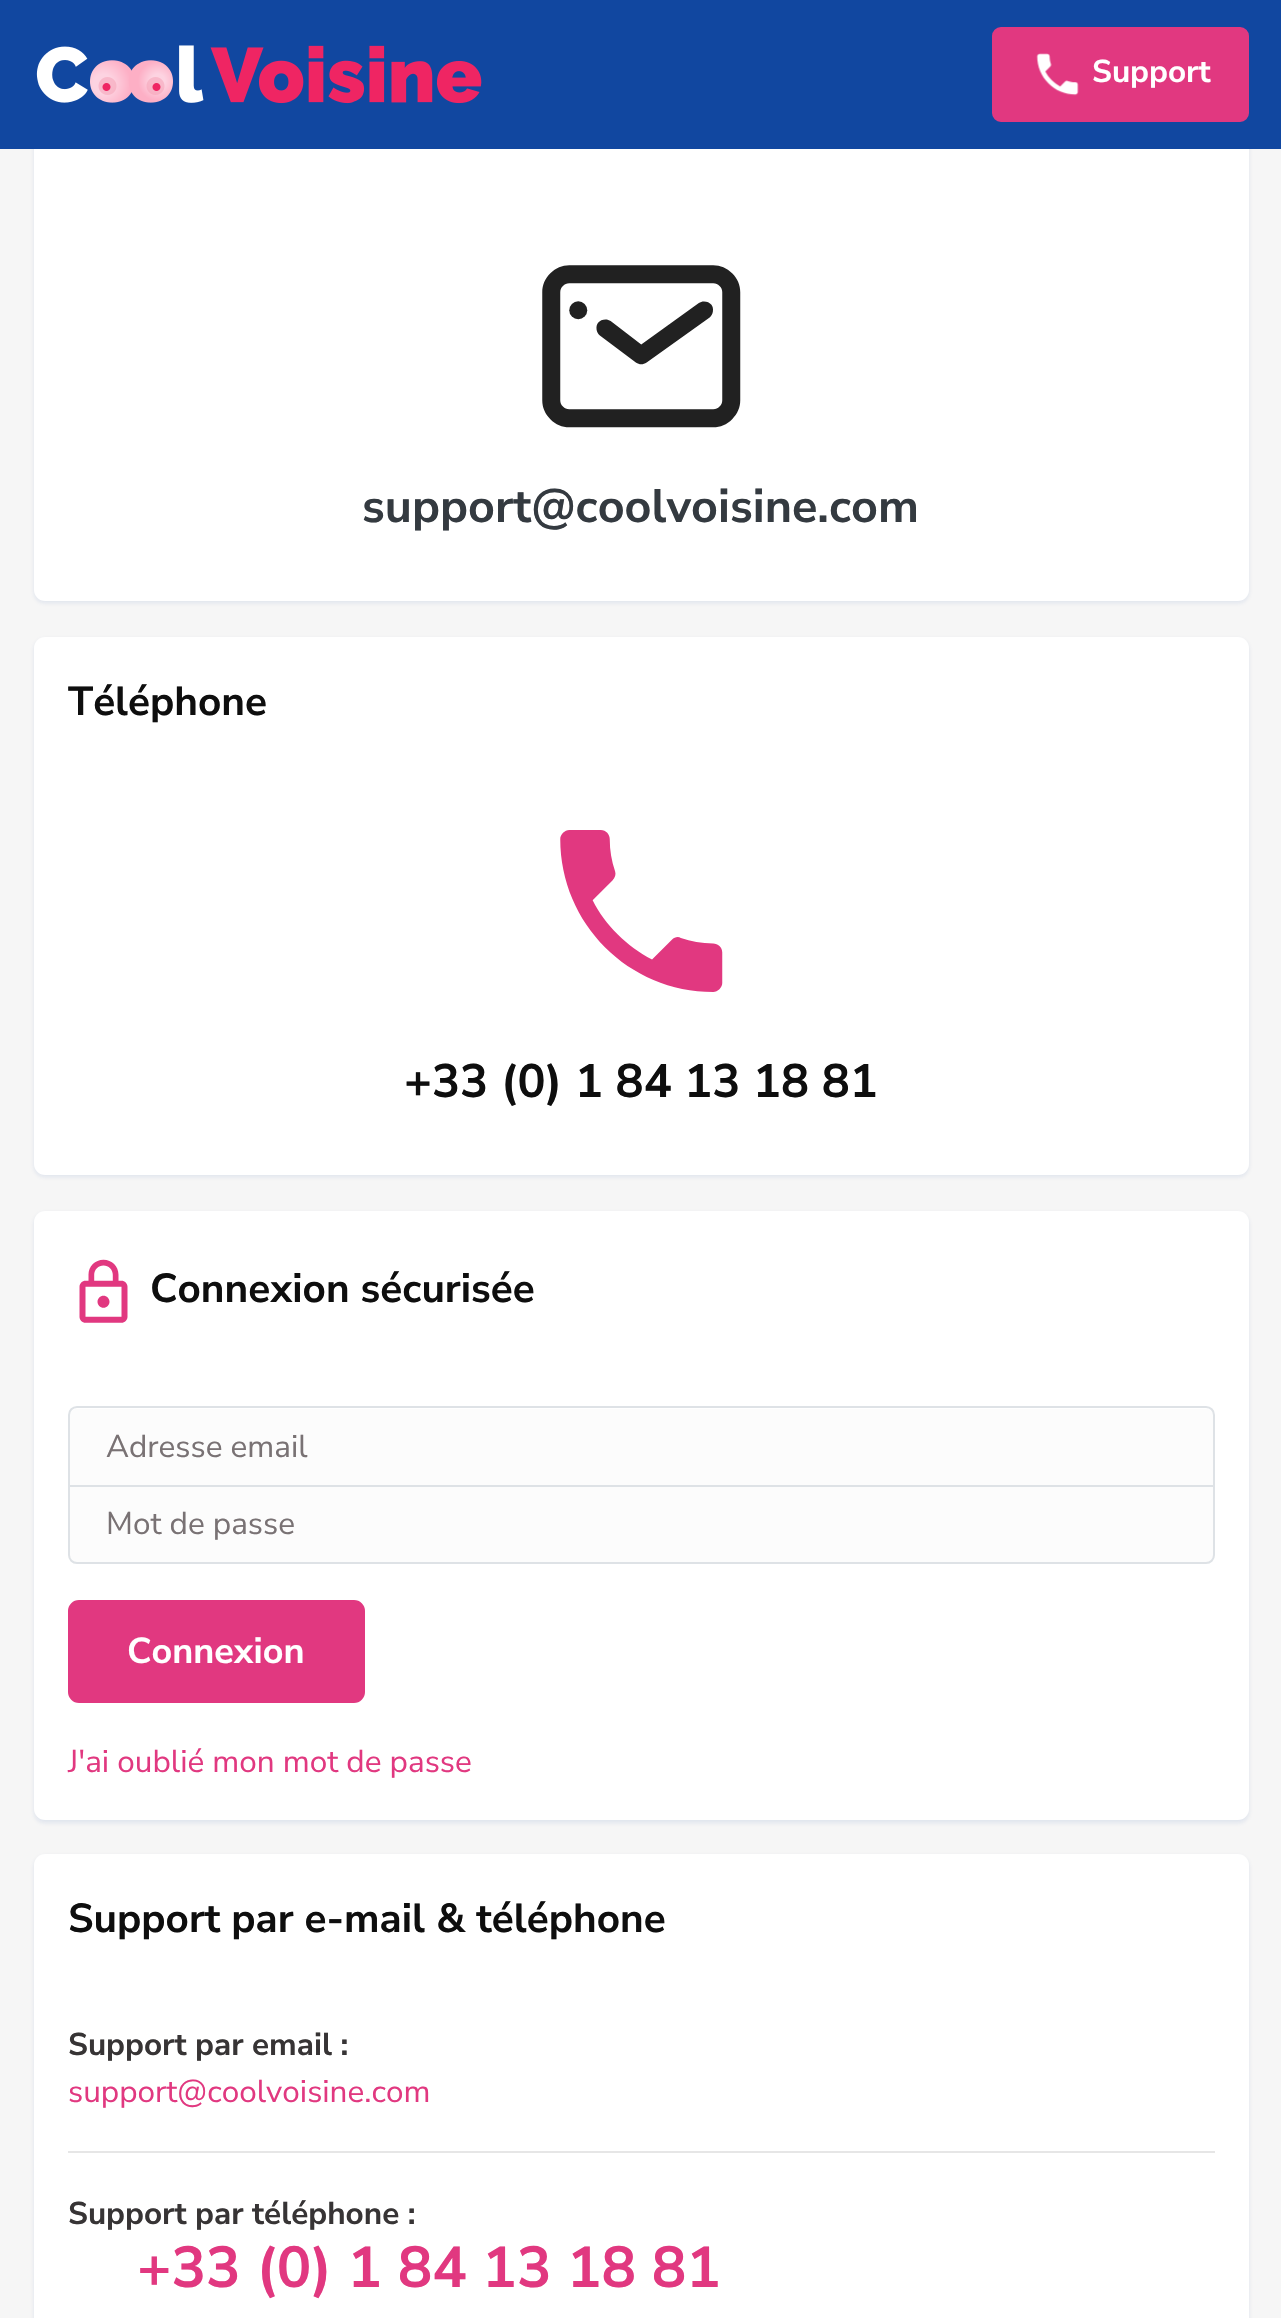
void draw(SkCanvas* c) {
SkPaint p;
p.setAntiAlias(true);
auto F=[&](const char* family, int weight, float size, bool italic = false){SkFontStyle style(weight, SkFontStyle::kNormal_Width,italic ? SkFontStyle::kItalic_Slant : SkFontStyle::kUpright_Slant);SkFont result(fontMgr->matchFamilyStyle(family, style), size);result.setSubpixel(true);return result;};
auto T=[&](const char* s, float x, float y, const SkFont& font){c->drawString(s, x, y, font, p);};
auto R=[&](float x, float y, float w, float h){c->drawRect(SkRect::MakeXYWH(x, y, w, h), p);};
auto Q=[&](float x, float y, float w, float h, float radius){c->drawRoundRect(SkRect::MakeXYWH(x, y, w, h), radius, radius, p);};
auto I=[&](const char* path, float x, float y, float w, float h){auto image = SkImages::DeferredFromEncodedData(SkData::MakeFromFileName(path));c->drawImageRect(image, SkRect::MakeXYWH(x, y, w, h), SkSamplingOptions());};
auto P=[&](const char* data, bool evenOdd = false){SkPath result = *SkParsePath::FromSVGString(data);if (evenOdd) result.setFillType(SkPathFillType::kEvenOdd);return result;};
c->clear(0xfff6f6f6);
p.setColor(0x1a1147a0);
p.setMaskFilter(SkMaskFilter::MakeBlur(kNormal_SkBlurStyle, 2));
c->drawRoundRect(SkRect::MakeXYWH(34,63,1215,540),11,11,p);
p.setMaskFilter(nullptr);
p.setColor(0xffffffff);
Q(34,61,1215,540,11);
p.setColor(0xff1147a0);
R(0,0,1281,149);
I("1.png",36,45,446,59);
p.setColor(0xffe13880);
c->drawRoundRect(SkRect::MakeXYWH(993,28,255,93),8,8,p);
p.setStroke(true);
p.setStrokeWidth(2);
c->drawRoundRect(SkRect::MakeXYWH(993,28,255,93),8,8,p);
I("2.png",1036,53,43,43);
auto f1 = F("Nunito Sans",700,31.5);
p.setStroke(false);
p.setColor(0xffffffff);
T("Support",1092,82,f1);
I("3.png",542,265,199,163);
auto f2 = F("Nunito Sans",700,46.75);
p.setColor(0xff343a40);
T("support@coolvoisine.com",362,522,f2);
p.setColor(0x1a1147a0);
p.setMaskFilter(SkMaskFilter::MakeBlur(kNormal_SkBlurStyle, 2));
c->drawRoundRect(SkRect::MakeXYWH(34,639,1215,538),11,11,p);
p.setMaskFilter(nullptr);
p.setColor(0xffffffff);
Q(34,637,1215,538,11);
auto f3 = F("Nunito Sans",700,40.5);
p.setColor(0xff0e0e0e);
T("Téléphone",68,715,f3);
I("4.png",560,830,163,162);
T("+33 (0) 1 84 13 18 81",404,1097,f2);
p.setColor(0x1a1147a0);
p.setMaskFilter(SkMaskFilter::MakeBlur(kNormal_SkBlurStyle, 2));
c->drawRoundRect(SkRect::MakeXYWH(34,1213,1215,610),11,11,p);
p.setMaskFilter(nullptr);
p.setColor(0xffffffff);
Q(34,1211,1215,609,11);
I("5.png",79,1259,49,64);
p.setColor(0xff0e0e0e);
T("Connexion sécurisée",150,1302,f3);
p.setColor(0xfffcfcfc);
c->drawPath(P("M77 1409h1129c4 0 7 3 7 7v69h-1143v-69c0-4 3-7 7-7z"),p);
p.setStroke(true);
p.setColor(0xffdee2e6);
c->drawPath(P("M77 1407h1129c4.5 0 8 3.5 8 8v71h-1145v-71c0-4.5 3.5-8 8-8z"),p);
auto f4 = F("Nunito Sans",400,31.5);
p.setStroke(false);
p.setColor(0xff797274);
T("Adresse email",106,1457,f4);
p.setColor(0xfffcfcfc);
c->drawPath(P("M69 1486h1145v69c0 4.5-3.5 8-8 8h-1129c-4.5 0-8-3.5-8-8z"),p);
p.setStroke(true);
p.setColor(0xffdee2e6);
c->drawPath(P("M69 1486h1145v69c0 4.5-3.5 8-8 8h-1129c-4.5 0-8-3.5-8-8z"),p);
p.setStroke(false);
p.setColor(0xff797274);
T("Mot de passe",106,1534,f4);
p.setColor(0xffe13880);
c->drawRoundRect(SkRect::MakeXYWH(69,1601,295,101),10,10,p);
p.setStroke(true);
c->drawRoundRect(SkRect::MakeXYWH(69,1601,295,101),10,10,p);
auto f5 = F("Nunito Sans",700,36);
p.setStroke(false);
p.setColor(0xffffffff);
T("Connexion",127,1663,f5);
p.setColor(0xffe13880);
T("J'ai oublié mon mot de passe",68,1772,f4);
p.setColor(0x1a1147a0);
p.setMaskFilter(SkMaskFilter::MakeBlur(kNormal_SkBlurStyle, 2));
c->drawRoundRect(SkRect::MakeXYWH(34,1856,1215,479),11,11,p);
p.setMaskFilter(nullptr);
p.setColor(0xffffffff);
Q(34,1854,1215,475,11);
p.setColor(0xff0e0e0e);
T("Support par e-mail & téléphone",68,1932,f3);
p.setColor(0xff373435);
T("Support par email :",68,2055,f1);
p.setColor(0xffe13880);
T("support@coolvoisine.com",68,2102,f4);
p.setColor(0xffe6e6e6);
R(68,2151,1147,2);
p.setColor(0xff373435);
T("Support par téléphone :",68,2224,f1);
auto f6 = F("Nunito Sans",700,57.6);
p.setColor(0xffe13880);
T("+33 (0) 1 84 13 18 81",137,2287,f6);
}
